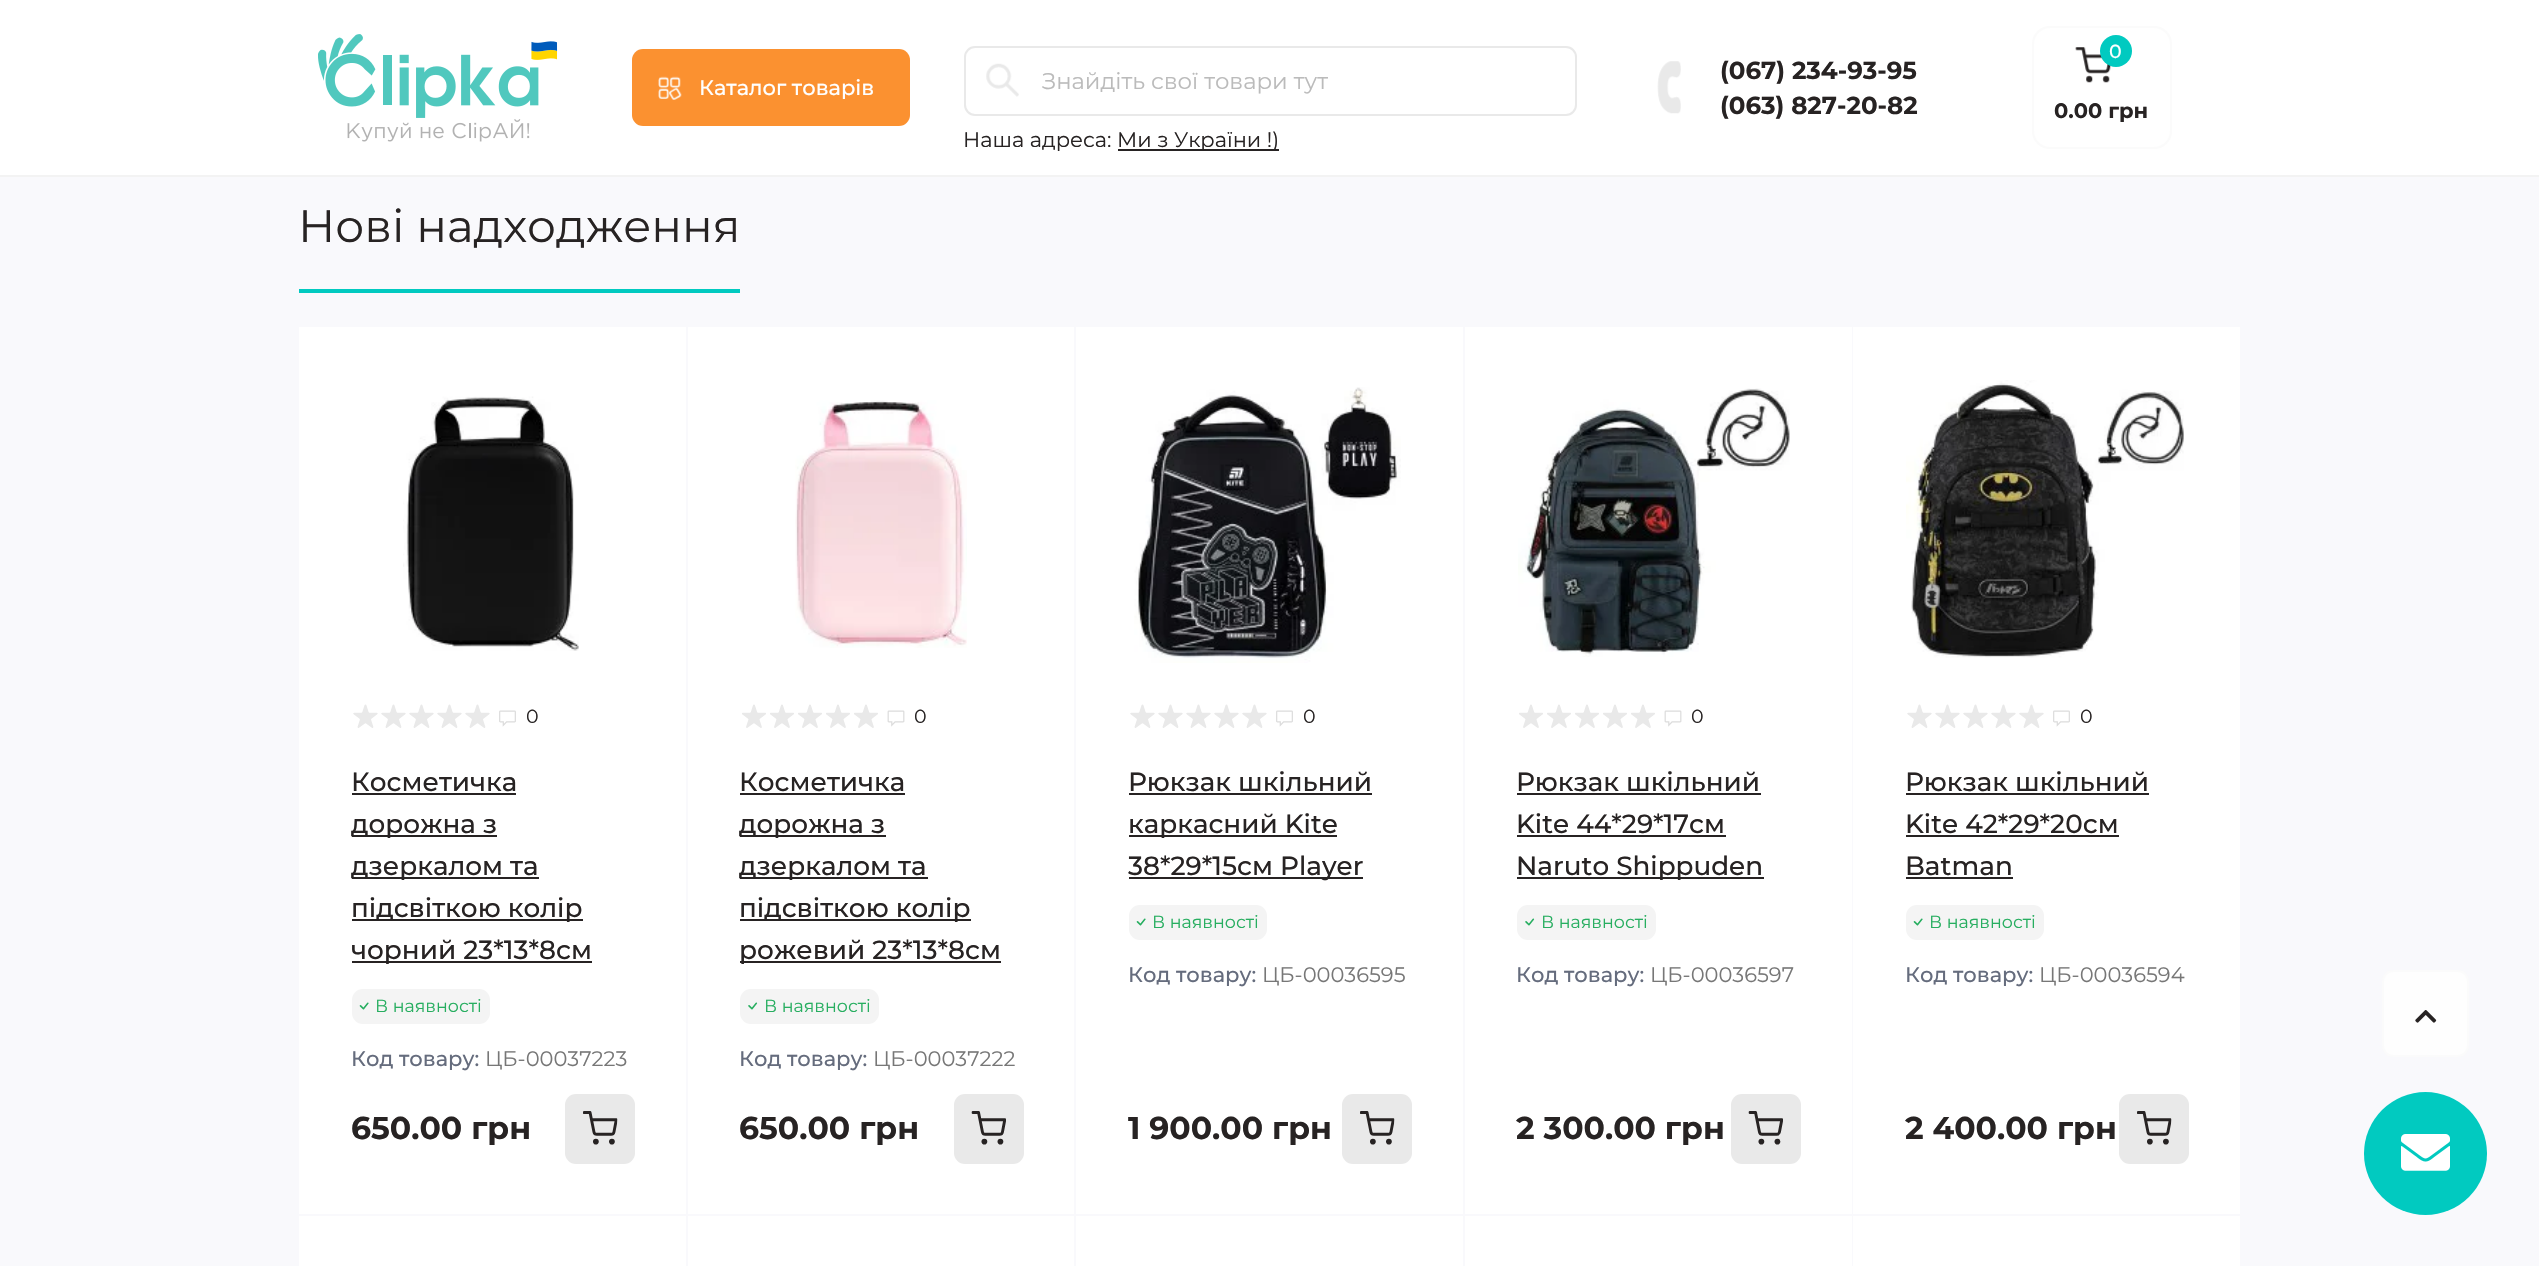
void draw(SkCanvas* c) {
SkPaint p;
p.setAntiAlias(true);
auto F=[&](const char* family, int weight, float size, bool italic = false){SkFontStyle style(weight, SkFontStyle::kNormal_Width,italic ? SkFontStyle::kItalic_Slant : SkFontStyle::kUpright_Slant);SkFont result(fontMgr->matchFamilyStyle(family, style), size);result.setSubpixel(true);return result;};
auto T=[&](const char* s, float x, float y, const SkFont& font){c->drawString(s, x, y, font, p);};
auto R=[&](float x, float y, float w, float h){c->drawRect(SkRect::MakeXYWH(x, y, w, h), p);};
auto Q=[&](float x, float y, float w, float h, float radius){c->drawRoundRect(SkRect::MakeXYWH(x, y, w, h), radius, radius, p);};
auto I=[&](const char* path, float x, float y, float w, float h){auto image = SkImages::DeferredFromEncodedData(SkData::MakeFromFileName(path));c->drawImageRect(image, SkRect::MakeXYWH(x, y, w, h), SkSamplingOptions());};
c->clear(0xfff9f9fc);
p.setColor(0xffffffff);
R(0,0,2539,175);
p.setColor(0xfff3f3f3);
R(0,175,2539,2);
I("1.png",318,34,240,108);
p.setColor(0xfffb9130);
Q(632,49,278,77,11);
I("2.png",658,76,24,24);
auto f1 = F("Montserrat",500,21);
p.setColor(0xffffffff);
T("Каталог товарів",699,95,f1);
p.setStroke(true);
p.setStrokeWidth(2);
p.setColor(0xffe9e9e9);
c->drawRoundRect(SkRect::MakeXYWH(965,47,611,68),10,10,p);
I("3.png",986,63,33,34);
auto f2 = F("Montserrat",400,22.75);
p.setStroke(false);
p.setColor(0xffbbbbbb);
T("Знайдіть свої товари тут",1042,89,f2);
auto f3 = F("Montserrat",400,21);
p.setColor(0xff272323);
T("Наша адреса:",963,147,f3);
R(1118,149,161,2);
T("Ми з України !)",1117,147,f3);
I("4.png",1657,61,24,53);
auto f4 = F("Montserrat",700,24.5);
T("(067) 234-93-95",1720,79,f4);
T("(063) 827-20-82",1720,114,f4);
p.setStroke(true);
p.setColor(0xfffbfbfb);
c->drawRoundRect(SkRect::MakeXYWH(2033,27,138,121),17,17,p);
I("5.png",2075,47,36,36);
p.setStroke(false);
p.setColor(0xff01cac0);
c->drawCircle(2116,51,16,p);
auto f5 = F("Montserrat",500,19);
p.setColor(0xffffffff);
T("0",2109,58,f5);
auto f6 = F("Montserrat",700,21);
p.setColor(0xff272323);
T("0.00 грн",2054,118,f6);
p.setColor(0xff01cac0);
R(299,289,441,4);
auto f7 = F("Montserrat",400,45.5);
p.setColor(0xff272323);
T("Нові надходження",298,242,f7);
p.setColor(0xffffffff);
R(299,327,387,887);
I("6.png",403,396,176,255);
I("7.png",353,704,25,24);
I("7.png",381,704,25,24);
I("7.png",409,704,25,24);
I("7.png",437,704,25,24);
I("7.png",465,704,25,24);
I("8.png",499,710,17,17);
auto f8 = F("Montserrat",400,19);
p.setColor(0xff272323);
T("0",526,723,f8);
auto f9 = F("Montserrat",500,26.25);
T("Косметичка",351,791,f9);
R(352,793,164,2);
R(352,835,145,2);
T("дорожна з",351,833,f9);
R(352,877,187,2);
T("дзеркалом та",351,875,f9);
R(352,919,231,2);
T("підсвіткою колір",351,917,f9);
R(352,961,240,2);
T("чорний 23*13*8см",351,959,f9);
p.setColor(0xfff4f4f4);
Q(352,989,138,35,11);
I("9.png",359,1002,10,8);
auto f10 = F("Montserrat",400,17.5);
p.setColor(0xff27ae60);
T("В наявності",375,1012,f10);
p.setColor(0xff656c7d);
T("Код товару:",351,1066,f1);
p.setColor(0xff777777);
T("ЦБ-00037223",485,1066,f3);
auto f11 = F("Montserrat",700,31.5);
p.setColor(0xff272323);
T("650.00 грн",351,1139,f11);
p.setColor(0xffe9e9e9);
Q(565,1094,70,70,11);
I("10.png",583,1111,35,34);
p.setColor(0xffffffff);
R(688,327,386,887);
I("11.png",795,400,172,248);
I("12.png",742,704,24,24);
I("13.png",770,704,24,24);
I("13.png",798,704,24,24);
I("13.png",826,704,24,24);
I("13.png",854,704,24,24);
I("14.png",887,710,18,17);
p.setColor(0xff272323);
T("0",914,723,f8);
T("Косметичка",739,791,f9);
R(740,793,165,2);
R(740,835,146,2);
T("дорожна з",739,833,f9);
R(740,877,188,2);
T("дзеркалом та",739,875,f9);
R(740,919,231,2);
T("підсвіткою колір",739,917,f9);
R(740,961,261,2);
T("рожевий 23*13*8см",739,959,f9);
p.setColor(0xfff4f4f4);
Q(740,989,139,35,11);
I("15.png",748,1002,10,8);
p.setColor(0xff27ae60);
T("В наявності",764,1012,f10);
p.setColor(0xff656c7d);
T("Код товару:",739,1066,f1);
p.setColor(0xff777777);
T("ЦБ-00037222",873,1066,f3);
p.setColor(0xff272323);
T("650.00 грн",739,1139,f11);
p.setColor(0xffe9e9e9);
Q(954,1094,70,70,11);
I("16.png",971,1111,35,34);
p.setColor(0xffffffff);
R(1076,327,387,887);
I("17.png",1134,387,267,276);
I("7.png",1130,704,25,24);
I("7.png",1158,704,25,24);
I("7.png",1186,704,25,24);
I("7.png",1214,704,25,24);
I("7.png",1242,704,25,24);
I("8.png",1276,710,17,17);
p.setColor(0xff272323);
T("0",1303,723,f8);
T("Рюкзак шкільний",1128,791,f9);
R(1129,793,243,2);
R(1129,835,208,2);
T("каркасний Kite",1128,833,f9);
R(1129,877,234,2);
T("38*29*15см Player",1128,875,f9);
p.setColor(0xfff4f4f4);
Q(1129,905,138,35,11);
I("9.png",1136,918,10,8);
p.setColor(0xff27ae60);
T("В наявності",1152,928,f10);
p.setColor(0xff656c7d);
T("Код товару:",1128,982,f1);
p.setColor(0xff777777);
T("ЦБ-00036595",1262,982,f3);
p.setColor(0xff272323);
T("1 900.00 грн",1128,1139,f11);
p.setColor(0xffe9e9e9);
Q(1342,1094,70,70,11);
I("10.png",1360,1111,35,34);
p.setColor(0xffffffff);
R(1465,327,387,887);
I("18.png",1518,388,272,269);
I("19.png",1519,704,24,24);
I("13.png",1547,704,24,24);
I("13.png",1575,704,24,24);
I("13.png",1603,704,24,24);
I("13.png",1631,704,24,24);
I("14.png",1664,710,18,17);
p.setColor(0xff272323);
T("0",1691,723,f8);
T("Рюкзак шкільний",1516,791,f9);
R(1517,793,244,2);
T("Kite 44*29*17см",1516,833,f9);
R(1517,835,209,2);
R(1517,877,247,2);
T("Naruto Shippuden",1516,875,f9);
p.setColor(0xfff4f4f4);
Q(1517,905,139,35,11);
I("15.png",1525,918,10,8);
p.setColor(0xff27ae60);
T("В наявності",1541,928,f10);
p.setColor(0xff656c7d);
T("Код товару:",1516,982,f1);
p.setColor(0xff777777);
T("ЦБ-00036597",1650,982,f3);
p.setColor(0xff272323);
T("2 300.00 грн",1516,1139,f11);
p.setColor(0xffe9e9e9);
Q(1731,1094,70,70,11);
I("20.png",1748,1111,35,34);
p.setColor(0xffffffff);
R(1853,327,387,887);
I("21.png",1906,380,278,278);
I("7.png",1907,704,25,24);
I("7.png",1935,704,25,24);
I("7.png",1963,704,25,24);
I("7.png",1991,704,25,24);
I("22.png",2019,704,25,24);
I("8.png",2053,710,17,17);
p.setColor(0xff272323);
T("0",2080,723,f8);
T("Рюкзак шкільний",1905,791,f9);
R(1906,793,243,2);
T("Kite 42*29*20см",1905,833,f9);
R(1906,835,213,2);
T("Batman",1905,875,f9);
R(1906,877,107,2);
p.setColor(0xfff4f4f4);
Q(1906,905,138,35,11);
I("9.png",1913,918,10,8);
p.setColor(0xff27ae60);
T("В наявності",1929,928,f10);
p.setColor(0xff656c7d);
T("Код товару:",1905,982,f1);
p.setColor(0xff777777);
T("ЦБ-00036594",2039,982,f3);
p.setColor(0xff272323);
T("2 400.00 грн",1905,1139,f11);
p.setColor(0xffe9e9e9);
Q(2119,1094,70,70,11);
I("10.png",2137,1111,35,34);
p.setColor(0xffffffff);
R(299,1216,387,50);
R(688,1216,386,50);
R(1076,1216,387,50);
R(1465,1216,387,50);
R(1853,1216,387,50);
p.setColor(0xfffefefe);
c->drawRoundRect(SkRect::MakeXYWH(2383,971,85,85),10,10,p);
p.setStroke(true);
p.setColor(0xfffbfbfb);
c->drawRoundRect(SkRect::MakeXYWH(2383,971,85,85),10,10,p);
I("23.png",2415,1010,22,13);
p.setStroke(false);
p.setColor(0xff01cac0);
c->drawCircle(2425.5,1153.5,61.5,p);
I("24.png",2401,1134,49,37);
}
